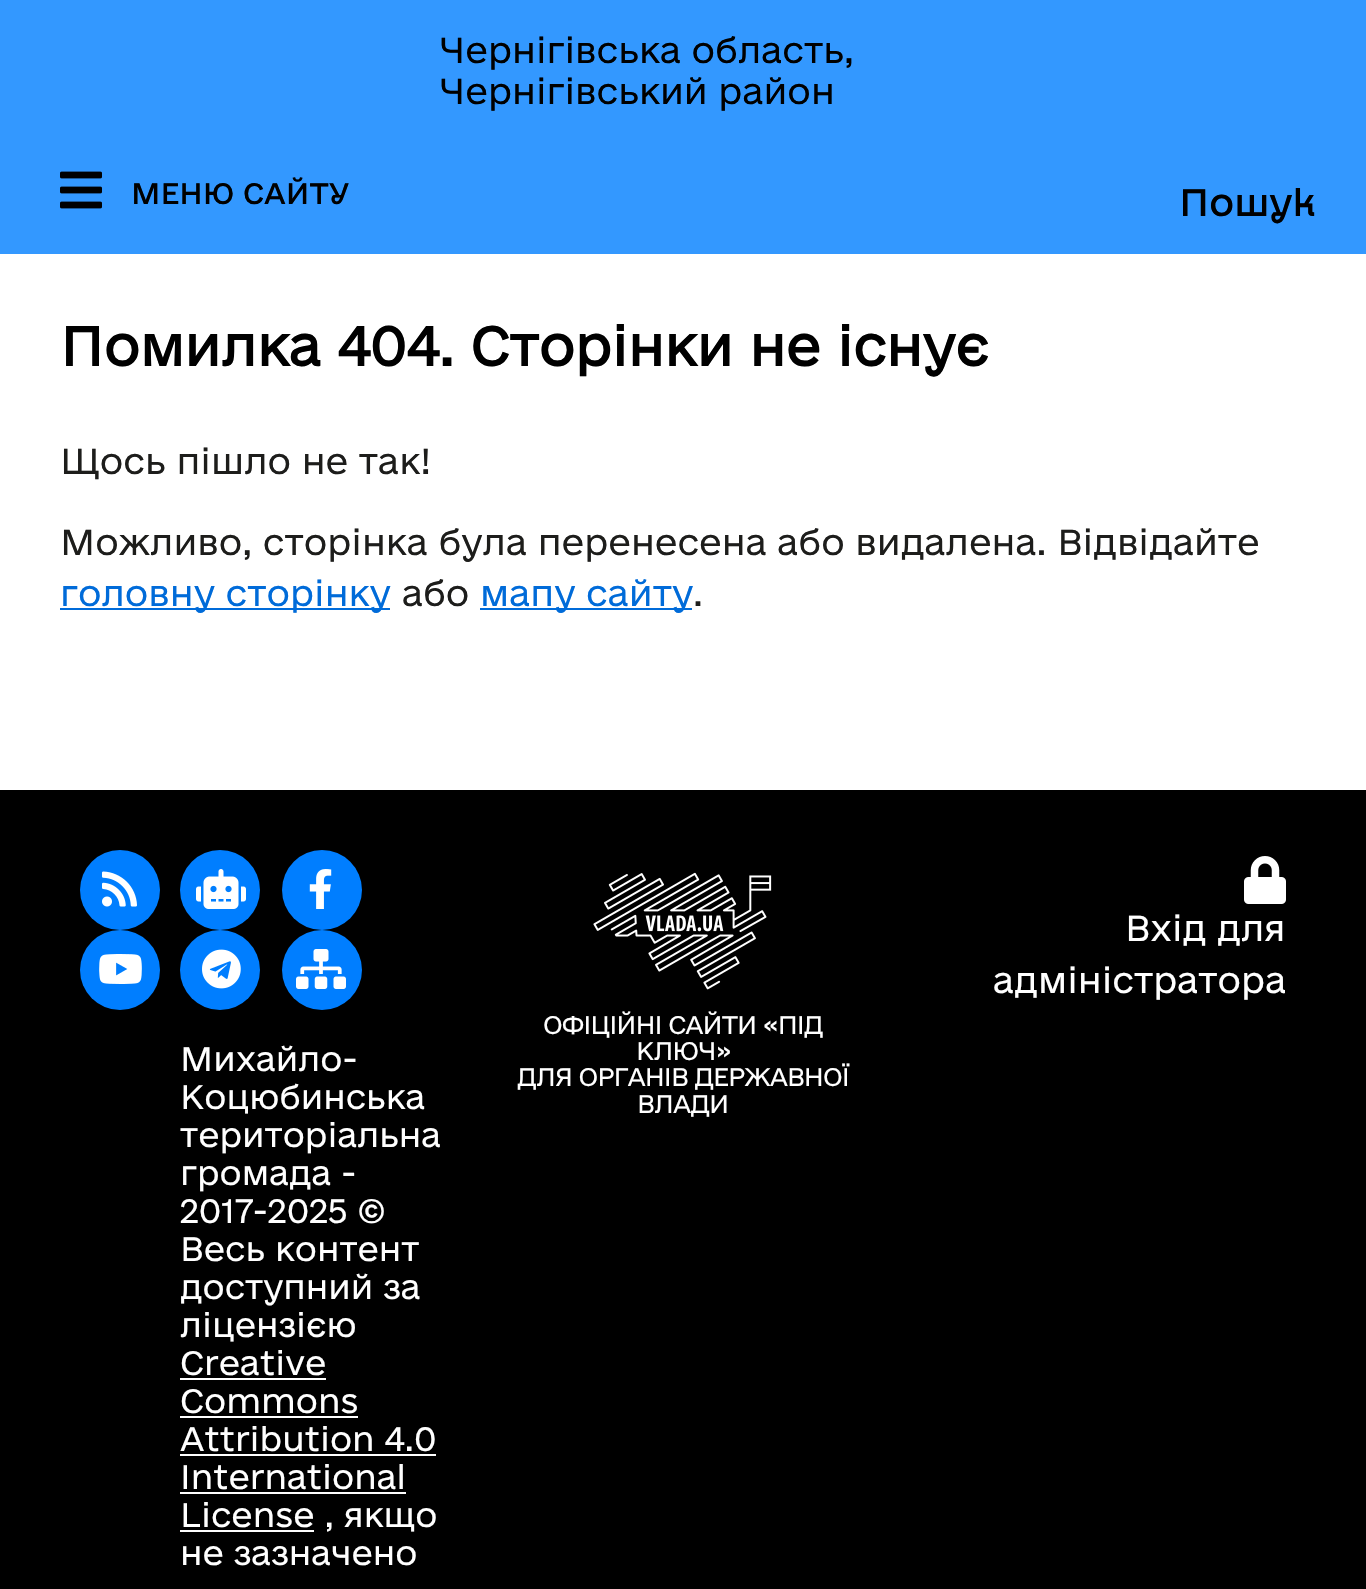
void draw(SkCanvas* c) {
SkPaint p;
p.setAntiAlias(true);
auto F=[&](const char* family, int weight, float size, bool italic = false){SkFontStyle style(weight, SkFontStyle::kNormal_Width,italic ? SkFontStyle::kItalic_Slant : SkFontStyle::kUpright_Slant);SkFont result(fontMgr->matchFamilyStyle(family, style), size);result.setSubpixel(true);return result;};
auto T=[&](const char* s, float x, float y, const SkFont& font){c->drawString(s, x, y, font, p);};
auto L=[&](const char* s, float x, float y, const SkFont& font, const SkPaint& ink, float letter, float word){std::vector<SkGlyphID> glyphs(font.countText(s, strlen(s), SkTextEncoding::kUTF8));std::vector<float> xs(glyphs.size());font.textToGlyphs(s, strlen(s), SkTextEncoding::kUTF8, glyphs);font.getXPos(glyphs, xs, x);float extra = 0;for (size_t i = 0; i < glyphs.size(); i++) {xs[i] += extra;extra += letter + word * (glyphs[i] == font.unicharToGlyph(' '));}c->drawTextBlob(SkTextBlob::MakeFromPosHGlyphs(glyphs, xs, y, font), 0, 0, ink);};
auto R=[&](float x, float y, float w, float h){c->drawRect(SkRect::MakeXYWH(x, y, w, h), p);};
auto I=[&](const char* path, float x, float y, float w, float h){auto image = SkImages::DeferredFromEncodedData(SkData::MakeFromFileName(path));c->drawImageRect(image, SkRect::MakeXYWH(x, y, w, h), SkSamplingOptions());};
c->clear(0xffffffff);
p.setColor(0xff3398ff);
R(0,0,1366,254);
auto f1 = F("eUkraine",300,34);
p.setColor(0xff000000);
T("Чернігівська область,",439,63,f1);
T("Чернігівський район",439,104,f1);
I("1.png",60,171,42,38);
auto f2 = F("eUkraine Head",400,28);
T("МЕНЮ САЙТУ",131,204,f2);
auto f3 = F("eUkraine Head",400,36);
T("Пошук",1179,216,f3);
auto f4 = F("eUkraine",700,52);
T("Помилка 404. Сторінки не існує",60,366,f4);
p.setColor(0xff1d1d1b);
T("Щось пішло не так!",60,474,f1);
T("Можливо, сторінка була перенесена або видалена. Відвідайте",60,555,f1);
p.setColor(0xff006bd9);
R(60,608,330,2);
T("головну сторінку",60,606,f1);
p.setColor(0xff1d1d1b);
T("або",402,606,f1);
p.setColor(0xff006bd9);
R(480,608,212,2);
T("мапу сайту",480,606,f1);
p.setColor(0xff1d1d1b);
T(".",693,606,f1);
p.setColor(0xff000000);
R(0,790,1366,799);
I("2.png",1244,856,42,48);
p.setColor(0xffffffff);
T("Вхід для",1125,941,f1);
T("адміністратора",993,993,f1);
p.setColor(0xff007eff);
c->drawCircle(120,890,40,p);
I("3.png",102,871,35,36);
c->drawCircle(220,890,40,p);
I("4.png",196,869,50,40);
c->drawCircle(322,890,40,p);
I("5.png",309,869,23,40);
c->drawCircle(120,970,40,p);
I("6.png",99,954,43,30);
c->drawCircle(220,970,40,p);
I("7.png",202,949,39,40);
c->drawCircle(322,970,40,p);
I("8.png",296,949,50,40);
auto f5 = F("eUkraine",300,32);
p.setColor(0xffffffff);
T("Михайло-",180,1071,f5);
T("Коцюбинська",180,1109,f5);
T("територіальна",180,1147,f5);
T("громада -",180,1185,f5);
T("2017-2025 ©",180,1223,f5);
T("Весь контент",180,1261,f5);
T("доступний за",180,1299,f5);
T("ліцензією",180,1337,f5);
T("Creative",180,1375,f5);
R(180,1378,146,2);
T("Commons",180,1413,f5);
R(180,1416,178,2);
T("Attribution 4.0",180,1451,f5);
R(180,1454,256,2);
T("International",180,1489,f5);
R(180,1492,226,2);
R(180,1530,134,2);
T("License , якщо",180,1527,f5);
T("не зазначено",180,1565,f5);
I("9.png",593,872,179,118);
auto f6 = F("eUkraine",300,24);
L("ОФІЦІЙНІ САЙТИ «ПІД",543,1034,f6,p,-1,0);
L("КЛЮЧ»",636,1060,f6,p,-1,0);
L("ДЛЯ ОРГАНІВ ДЕРЖАВНОЇ",517,1086,f6,p,-1,0);
L("ВЛАДИ",637,1113,f6,p,-1,0);
}
